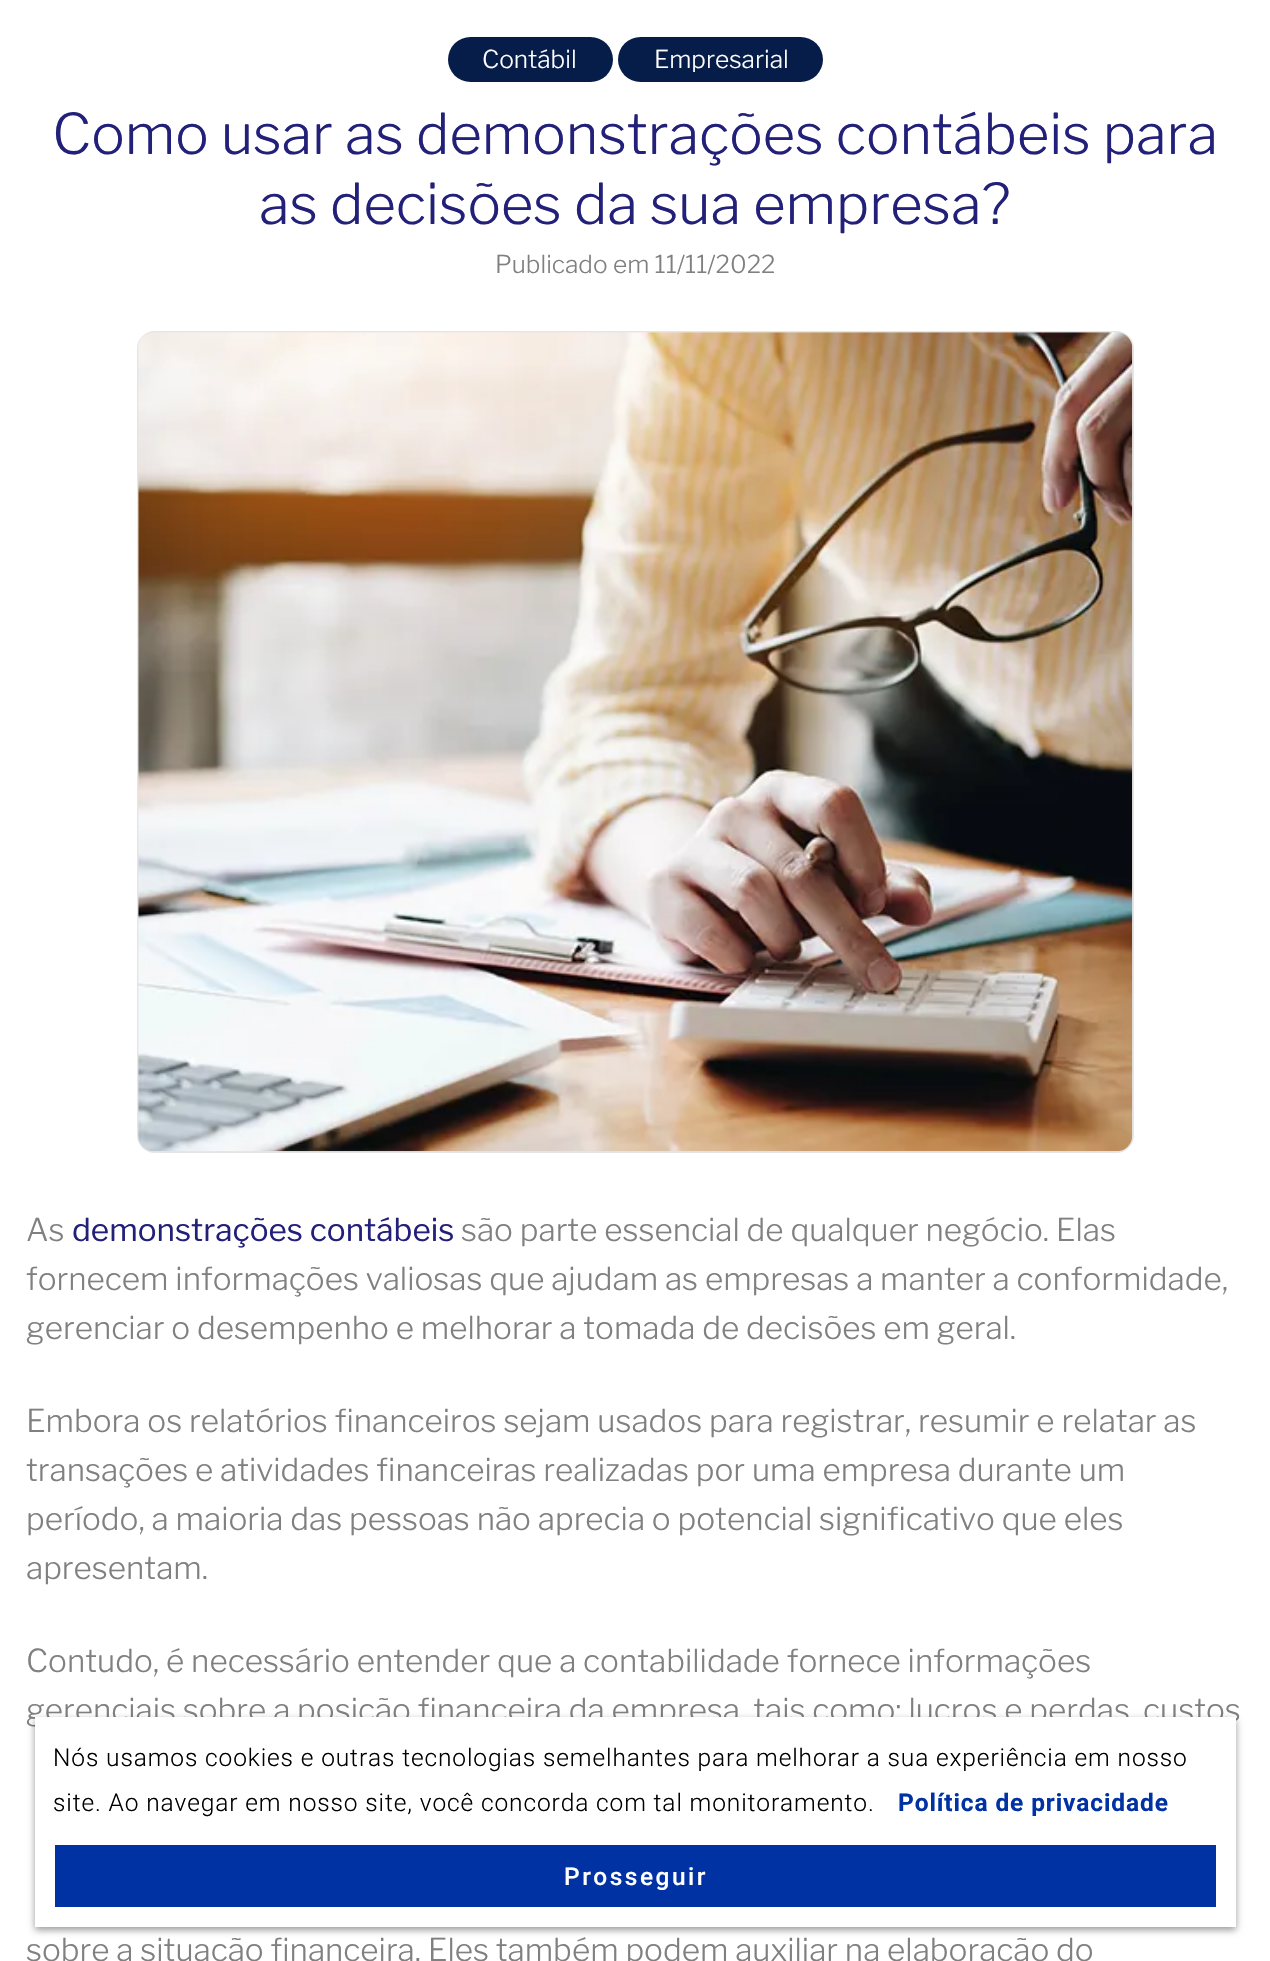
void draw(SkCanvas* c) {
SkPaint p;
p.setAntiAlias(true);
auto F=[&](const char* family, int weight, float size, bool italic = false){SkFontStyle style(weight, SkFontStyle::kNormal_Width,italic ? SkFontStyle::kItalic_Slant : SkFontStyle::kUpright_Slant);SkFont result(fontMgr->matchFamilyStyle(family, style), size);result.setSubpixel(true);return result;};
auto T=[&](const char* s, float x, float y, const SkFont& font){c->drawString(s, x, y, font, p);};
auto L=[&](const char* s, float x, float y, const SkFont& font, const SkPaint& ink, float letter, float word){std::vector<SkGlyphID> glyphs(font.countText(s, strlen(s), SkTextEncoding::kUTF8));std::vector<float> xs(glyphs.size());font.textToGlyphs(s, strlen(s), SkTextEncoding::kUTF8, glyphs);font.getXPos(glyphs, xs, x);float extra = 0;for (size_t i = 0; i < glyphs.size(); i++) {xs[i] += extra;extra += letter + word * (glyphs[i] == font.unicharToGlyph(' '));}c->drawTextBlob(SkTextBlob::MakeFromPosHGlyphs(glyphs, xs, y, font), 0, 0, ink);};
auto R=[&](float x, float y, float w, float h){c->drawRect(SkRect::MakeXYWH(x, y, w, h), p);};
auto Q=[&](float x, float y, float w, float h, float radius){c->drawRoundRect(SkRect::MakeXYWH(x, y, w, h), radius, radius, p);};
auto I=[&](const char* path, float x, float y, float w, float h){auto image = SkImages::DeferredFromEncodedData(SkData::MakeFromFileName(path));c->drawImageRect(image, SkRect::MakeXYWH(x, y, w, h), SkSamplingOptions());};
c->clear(0xffffffff);
p.setColor(0xff071d49);
Q(448,37,165,45,22.5);
auto f1 = F("Libre Franklin",300,24.5);
p.setColor(0xffffffff);
T("Contábil",482,68,f1);
p.setColor(0xff071d49);
Q(618,37,205,45,22.5);
p.setColor(0xffffffff);
T("Empresarial",654,68,f1);
auto f2 = F("Libre Franklin",300,56);
p.setColor(0xff222078);
T("Como usar as demonstrações contábeis para",52,154,f2);
T("as decisões da sua empresa?",259,224,f2);
p.setColor(0xff808080);
T("Publicado em 11/11/2022",495,273,f1);
p.setStroke(true);
p.setStrokeWidth(2);
p.setColor(0xffe5e5e5);
c->drawRoundRect(SkRect::MakeXYWH(138,332,995,820),17,17,p);
I("1.png",138,332,995,820);
auto f3 = F("Libre Franklin",300,31.5);
p.setStroke(false);
p.setColor(0xff808080);
T("As",26,1241,f3);
auto f4 = F("Libre Franklin",400,31.5);
p.setColor(0xff222078);
T("demonstrações contábeis",72,1241,f4);
p.setColor(0xff808080);
T("são parte essencial de qualquer negócio. Elas",461,1241,f3);
T("fornecem informações valiosas que ajudam as empresas a manter a conformidade,",26,1290,f3);
T("gerenciar o desempenho e melhorar a tomada de decisões em geral.",26,1339,f3);
T("Embora os relatórios financeiros sejam usados para registrar, resumir e relatar as",26,1432,f3);
T("transações e atividades financeiras realizadas por uma empresa durante um",26,1481,f3);
T("período, a maioria das pessoas não aprecia o potencial significativo que eles",26,1530,f3);
T("apresentam.",26,1579,f3);
T("Contudo, é necessário entender que a contabilidade fornece informações",26,1672,f3);
T("gerenciais sobre a posição financeira da empresa, tais como: lucros e perdas, custos",26,1721,f3);
T("sobre a situação financeira. Eles também podem auxiliar na elaboração do",26,1961,f3);
p.setColor(0x66000000);
p.setMaskFilter(SkMaskFilter::MakeBlur(kNormal_SkBlurStyle, 3.5));
c->drawRect(SkRect::MakeXYWH(35,1720,1201,210),p);
p.setMaskFilter(nullptr);
p.setColor(0xffffffff);
R(35,1717,1201,210);
auto f5 = F("Roboto",300,24.5);
p.setColor(0xff000000);
L("Nós usamos cookies e outras tecnologias semelhantes para melhorar a sua experiência em nosso",53,1766,f5,p,.88,0);
L("site. Ao navegar em nosso site, você concorda com tal monitoramento.",53,1811,f5,p,.88,0);
auto f6 = F("Roboto",700,24.5);
p.setColor(0xff0032a3);
L("Política de privacidade",898,1811,f6,p,.88,0);
R(55,1845,1161,62);
auto f7 = F("Roboto",500,24.5);
p.setColor(0xffffffff);
L("Prosseguir",564,1885,f7,p,2.5,0);
}
